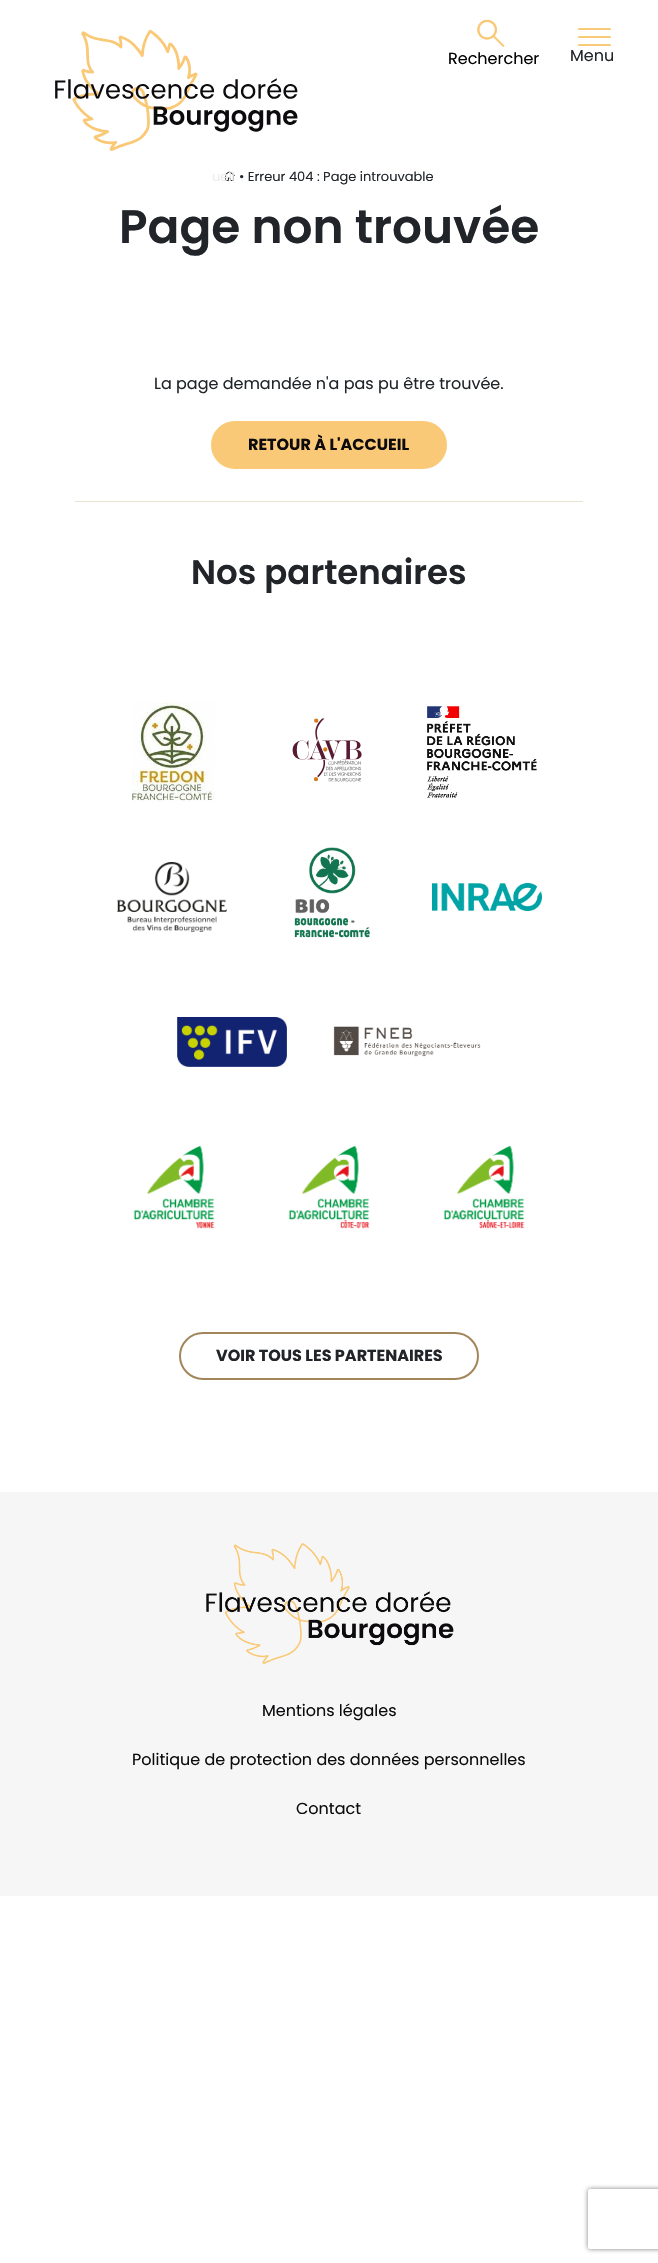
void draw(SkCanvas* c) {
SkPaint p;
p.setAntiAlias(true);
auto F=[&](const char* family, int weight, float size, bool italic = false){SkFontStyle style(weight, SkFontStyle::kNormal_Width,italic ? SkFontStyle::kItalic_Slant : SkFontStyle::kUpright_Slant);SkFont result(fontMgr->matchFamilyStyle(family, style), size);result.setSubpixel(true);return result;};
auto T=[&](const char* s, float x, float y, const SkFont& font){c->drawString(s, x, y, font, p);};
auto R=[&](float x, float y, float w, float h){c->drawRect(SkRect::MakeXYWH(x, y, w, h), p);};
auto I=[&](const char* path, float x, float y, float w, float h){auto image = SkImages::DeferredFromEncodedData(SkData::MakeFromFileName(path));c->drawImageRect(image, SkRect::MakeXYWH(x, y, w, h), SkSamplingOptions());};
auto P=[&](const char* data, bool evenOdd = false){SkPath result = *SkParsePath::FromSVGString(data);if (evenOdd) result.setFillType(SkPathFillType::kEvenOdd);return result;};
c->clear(0xffffffff);
I("3.png",225,171,10,10);
auto f1 = F("Poppins",400,13);
p.setColor(0xffececec);
T("ueil",212,181,f1);
p.setColor(0xff212529);
T("• Erreur 404 : Page introuvable",239,181,f1);
I("1.png",55,29,243,149);
I("2.png",477,19,28,28);
auto f2 = F("Poppins",400,16);
p.setColor(0xff000000);
T("Rechercher",448,64,f2);
p.setStroke(true);
p.setStrokeWidth(2);
p.setStrokeCap(SkPaint::kRound_Cap);
p.setColor(0xfff9c977);
c->drawPath(P("M579 29h31m-31 8h31m-31 8h31"),p);
p.setStroke(false);
p.setColor(0xff212529);
T("Menu",570,61,f2);
auto f3 = F("Poppins",600,47);
T("Page non trouvée",119,243,f3);
T("La page demandée n'a pas pu être trouvée.",154,389,f2);
p.setColor(0xfff9c977);
c->drawRoundRect(SkRect::MakeXYWH(212,422,234,46),23,23,p);
p.setStroke(true);
p.setStrokeCap(SkPaint::kButt_Cap);
c->drawRoundRect(SkRect::MakeXYWH(212,422,234,46),23,23,p);
auto f4 = F("Poppins",700,16);
p.setStroke(false);
p.setColor(0xff0d0b0e);
T("RETOUR À L'ACCUEIL",248,450,f4);
p.setColor(0xffebe2d4);
R(75,501,508,1);
auto f5 = F("Poppins",600,34);
p.setColor(0xff212529);
T("Nos partenaires",191,584,f5);
I("4.png",131,702,84,100);
I("5.png",292,718,70,64);
I("6.png",427,706,110,92);
I("7.png",117,862,110,70);
I("8.png",294,847,76,91);
I("9.png",432,883,110,28);
I("10.png",177,1017,110,50);
I("11.png",333,1026,148,31);
I("12.png",133,1145,82,84);
I("13.png",288,1145,82,84);
I("14.png",443,1145,82,84);
p.setStroke(true);
p.setColor(0xffa48559);
c->drawRoundRect(SkRect::MakeXYWH(180,1333,298,46),23,23,p);
p.setStroke(false);
p.setColor(0xff212529);
T("VOIR TOUS LES PARTENAIRES",216,1361,f4);
p.setColor(0xfff6f6f6);
R(0,1492,658,404);
I("15.png",206,1543,248,121);
p.setColor(0xff0d0b0e);
T("Mentions légales",262,1716,f2);
T("Politique de protection des données personnelles",132,1765,f2);
T("Contact",296,1814,f2);
c->save();
c->clipPath(P("M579 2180h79v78h-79zm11 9h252c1 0 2 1 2 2v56c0 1-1 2-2 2h-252c-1 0-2-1-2-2v-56c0-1 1-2 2-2z",true),true);
p.setColor(0xff808080);
p.setMaskFilter(SkMaskFilter::MakeBlur(kNormal_SkBlurStyle, 2.5));
c->drawRoundRect(SkRect::MakeXYWH(588,2189,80,60),2,2,p);
p.setMaskFilter(nullptr);
c->restore();
}
